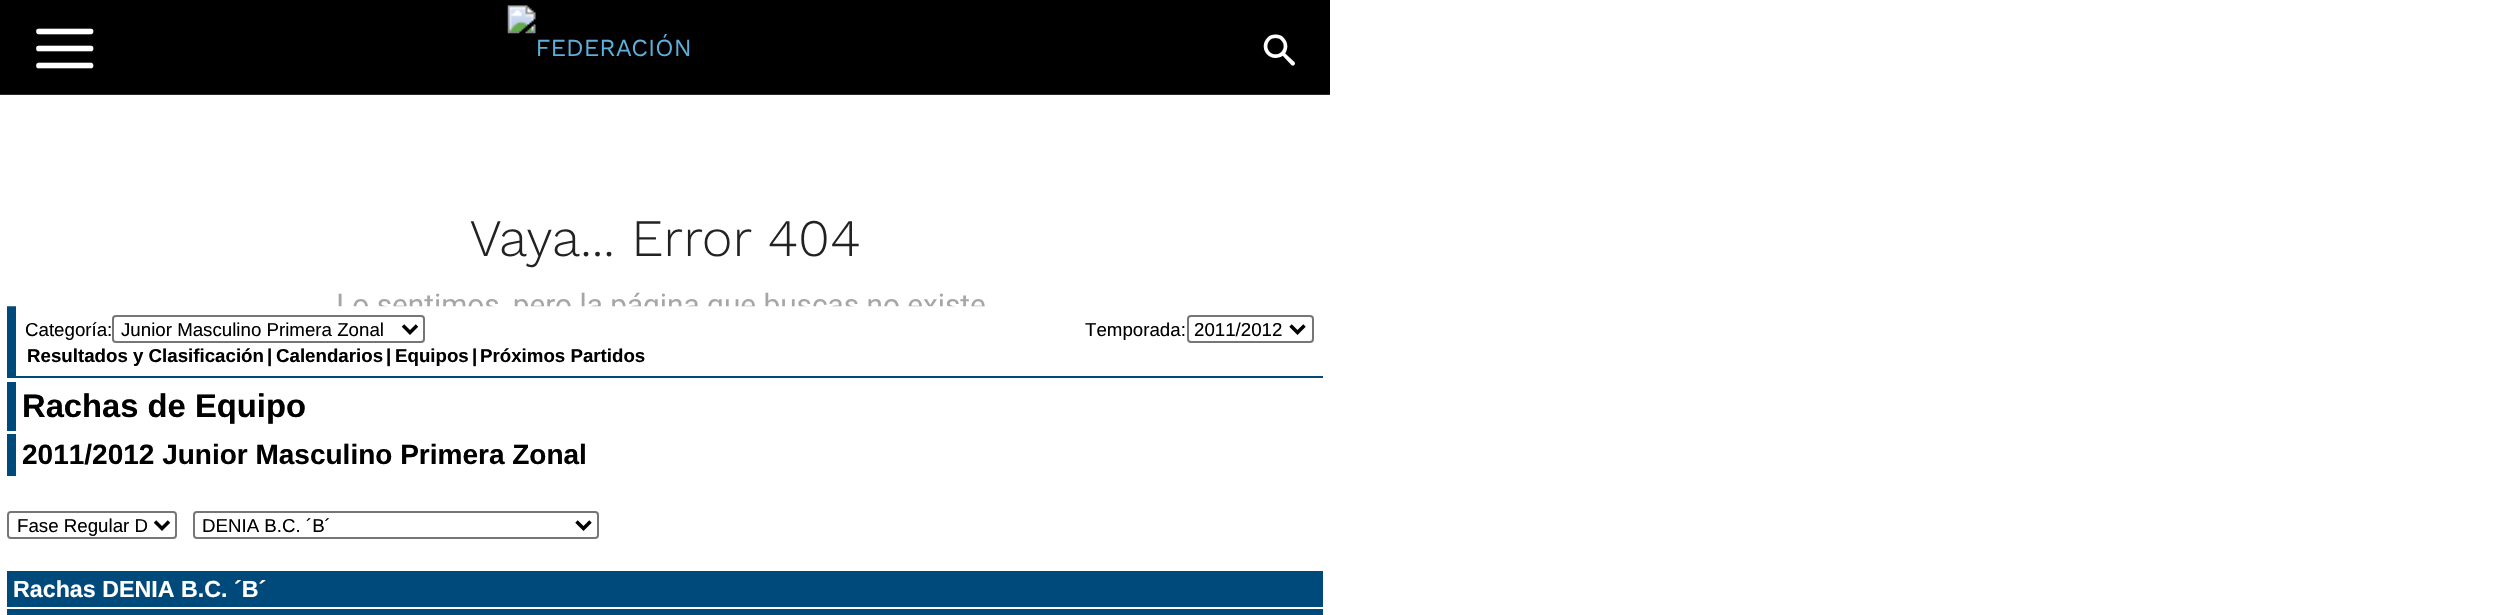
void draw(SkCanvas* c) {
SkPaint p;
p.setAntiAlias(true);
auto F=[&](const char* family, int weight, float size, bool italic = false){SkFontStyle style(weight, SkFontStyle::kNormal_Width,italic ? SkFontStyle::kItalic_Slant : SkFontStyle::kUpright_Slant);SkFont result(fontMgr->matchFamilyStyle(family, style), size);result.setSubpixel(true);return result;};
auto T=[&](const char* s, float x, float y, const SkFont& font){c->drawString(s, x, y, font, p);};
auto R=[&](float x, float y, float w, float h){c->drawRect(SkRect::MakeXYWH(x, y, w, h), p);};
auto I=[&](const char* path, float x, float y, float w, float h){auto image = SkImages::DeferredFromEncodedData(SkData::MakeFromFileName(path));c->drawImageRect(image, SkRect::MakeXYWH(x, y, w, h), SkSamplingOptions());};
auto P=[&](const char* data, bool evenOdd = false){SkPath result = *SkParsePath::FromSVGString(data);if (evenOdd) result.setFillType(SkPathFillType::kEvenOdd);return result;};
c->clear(0xffffffff);
p.setColor(0xff00497b);
R(7,306,9,72);
I("1.png",0,0,1330,307);
R(16,376,1307,2);
auto f1 = F("Liberation Sans",400,18.7);
p.setColor(0xff000000);
T("Categoría:",25,336,f1);
p.setStroke(true);
p.setStrokeWidth(2);
p.setColor(0xff767676);
c->drawRoundRect(SkRect::MakeXYWH(113,316,311,26),3,3,p);
p.setStrokeWidth(3.5);
p.setColor(0xff000000);
c->drawPath(P("M403 325.5l7 7l7-7"),p);
p.setStroke(false);
T("Junior Masculino Primera Zonal",121,336,f1);
T("Temporada:",1085,336,f1);
p.setStroke(true);
p.setStrokeWidth(2);
p.setColor(0xff767676);
c->drawRoundRect(SkRect::MakeXYWH(1188,316,125,26),3,3,p);
p.setStrokeWidth(3.5);
p.setColor(0xff000000);
c->drawPath(P("M1290.5 325.5l7 7l7-7"),p);
p.setStroke(false);
T("2011/2012",1194,336,f1);
auto f2 = F("Liberation Sans",700,18.7);
T("Resultados y Clasificación",27,362,f2);
T("|",267,362,f2);
T("Calendarios",276,362,f2);
T("|",386,362,f2);
T("Equipos",395,362,f2);
T("|",472,362,f2);
T("Próximos Partidos",480,362,f2);
p.setColor(0xff00497b);
R(7,382,9,49);
auto f3 = F("Liberation Sans",700,32.75);
p.setColor(0xff000000);
T("Rachas de Equipo",22,417,f3);
p.setColor(0xff00497b);
R(7,434,9,42);
auto f4 = F("Liberation Sans",700,28);
p.setColor(0xff000000);
T("2011/2012 Junior Masculino Primera Zonal",22,464,f4);
p.setStroke(true);
p.setStrokeWidth(2);
p.setColor(0xff767676);
c->drawRoundRect(SkRect::MakeXYWH(8,512,168,26),3,3,p);
p.setStrokeWidth(3.5);
p.setColor(0xff000000);
c->drawPath(P("M155 521.5l7 7l7-7"),p);
p.setStroke(false);
T("Fase Regular D",17,532,f1);
p.setStroke(true);
p.setStrokeWidth(2);
p.setColor(0xff767676);
c->drawRoundRect(SkRect::MakeXYWH(194,512,404,26),3,3,p);
p.setStrokeWidth(3.5);
p.setColor(0xff000000);
c->drawPath(P("M576.5 521.5l7 7l7-7"),p);
p.setStroke(false);
T("DENIA B.C. ´B´",202,532,f1);
p.setColor(0xff00497b);
R(7,571,1316,36);
auto f5 = F("Liberation Sans",700,23.25);
p.setColor(0xffffffff);
T("Rachas DENIA B.C. ´B´",13,597,f5);
p.setColor(0xff00497b);
R(7,609,1316,6);
}
